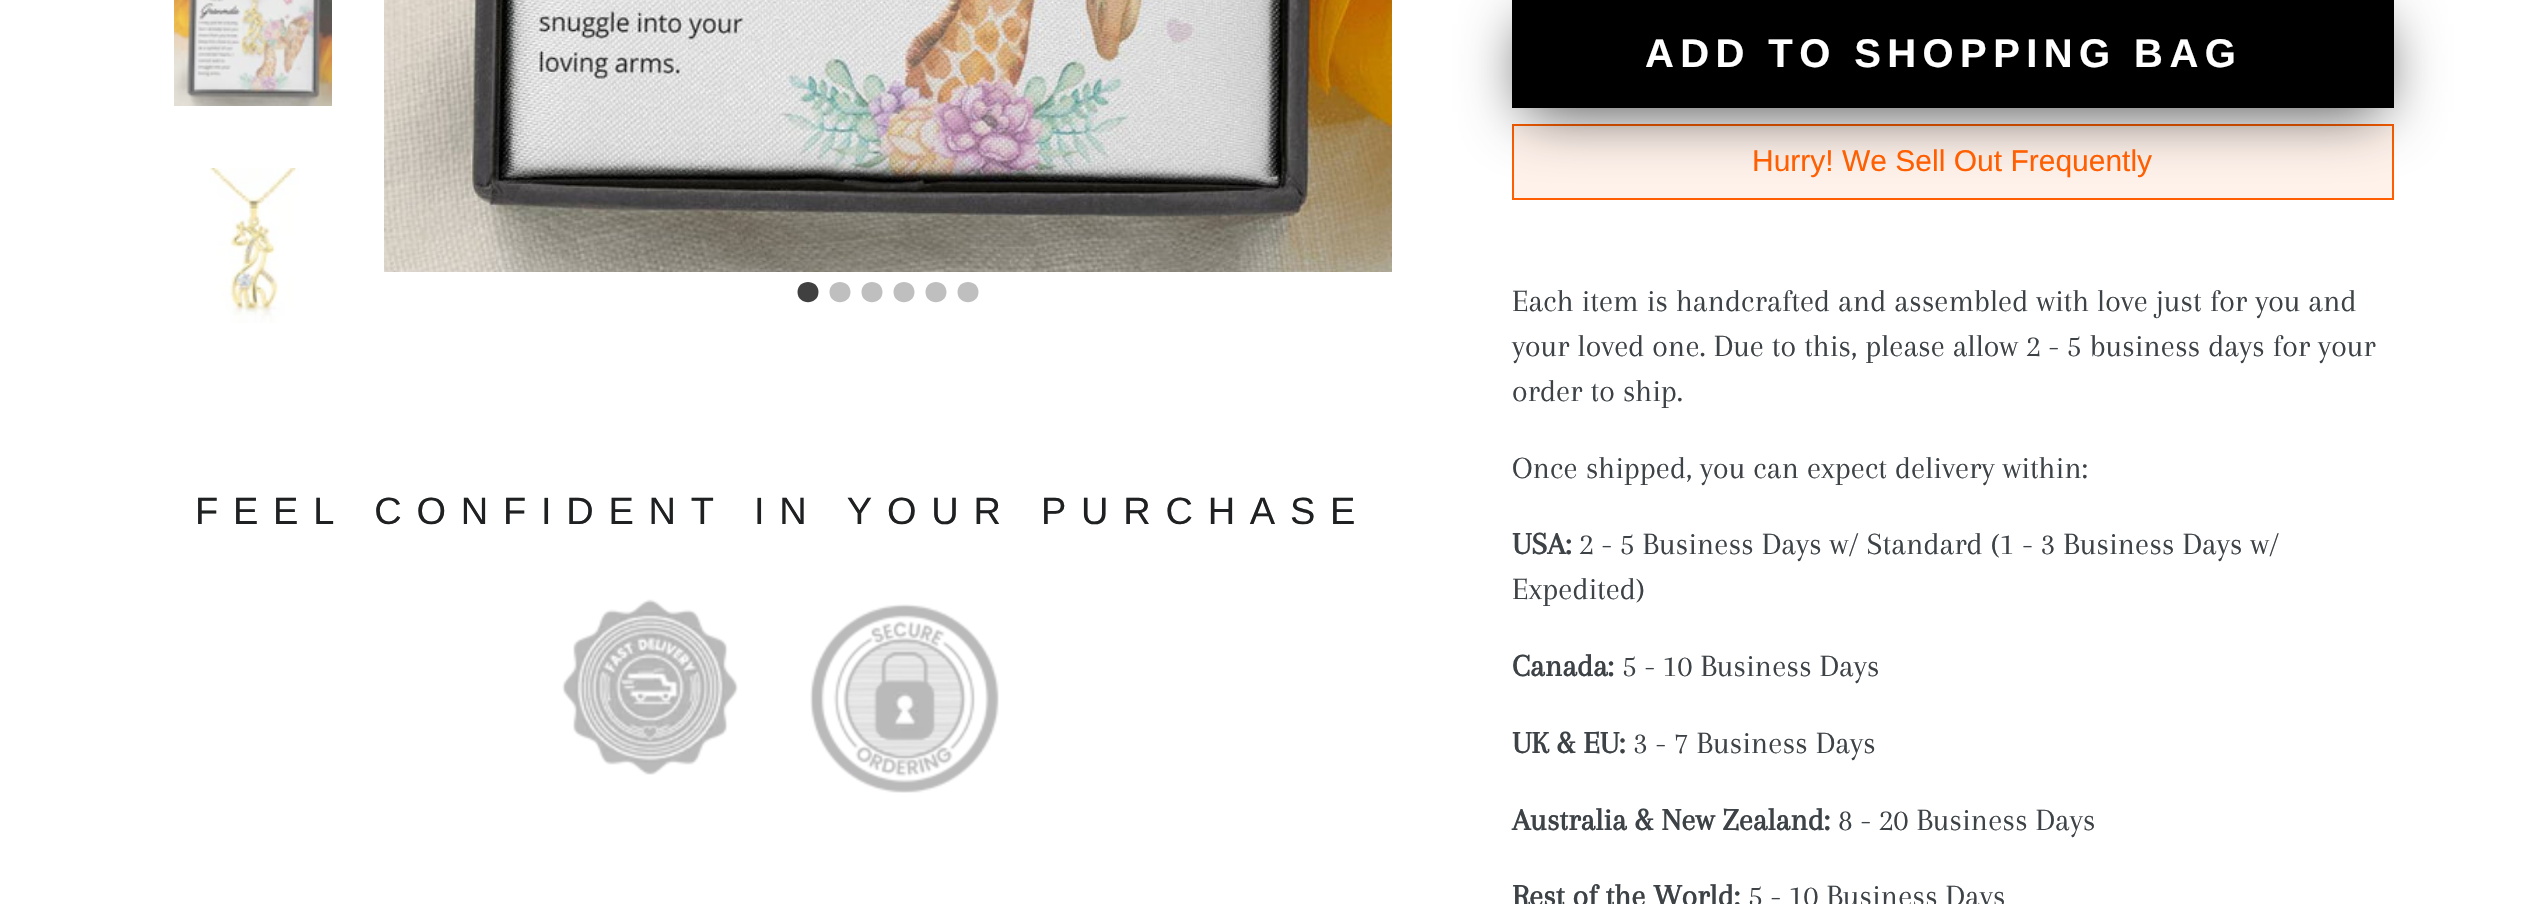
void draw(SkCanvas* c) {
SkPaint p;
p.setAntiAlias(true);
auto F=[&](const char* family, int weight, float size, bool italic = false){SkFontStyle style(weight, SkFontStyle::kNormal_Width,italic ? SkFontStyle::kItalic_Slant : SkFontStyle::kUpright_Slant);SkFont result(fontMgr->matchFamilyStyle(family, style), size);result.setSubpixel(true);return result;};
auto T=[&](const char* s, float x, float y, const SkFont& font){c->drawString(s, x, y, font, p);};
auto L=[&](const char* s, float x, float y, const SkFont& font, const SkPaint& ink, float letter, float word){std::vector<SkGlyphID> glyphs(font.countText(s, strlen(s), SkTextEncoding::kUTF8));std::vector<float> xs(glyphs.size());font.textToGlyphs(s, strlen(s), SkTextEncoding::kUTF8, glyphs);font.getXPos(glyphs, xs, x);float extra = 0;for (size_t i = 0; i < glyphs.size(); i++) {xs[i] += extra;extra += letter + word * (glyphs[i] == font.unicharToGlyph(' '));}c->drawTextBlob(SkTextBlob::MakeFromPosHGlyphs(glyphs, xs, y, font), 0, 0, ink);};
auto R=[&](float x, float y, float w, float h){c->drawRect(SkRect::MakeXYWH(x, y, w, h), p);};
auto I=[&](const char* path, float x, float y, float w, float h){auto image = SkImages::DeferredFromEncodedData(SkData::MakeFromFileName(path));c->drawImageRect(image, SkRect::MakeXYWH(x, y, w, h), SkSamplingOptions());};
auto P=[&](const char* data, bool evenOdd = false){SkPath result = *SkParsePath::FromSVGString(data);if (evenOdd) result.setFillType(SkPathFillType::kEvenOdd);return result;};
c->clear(0xffffffff);
I("1.png",174,0,158,106);
I("2.png",209,168,90,155);
I("3.png",384,0,1008,272);
p.setColor(0xff404040);
c->drawPath(P("M818.5 292c0-13.5-21-13.5-21 0c0 13.5 21 13.5 21 0z"),p);
p.setColor(0xffbfbfbf);
c->drawPath(P("M850.5 292c0-13.5-21-13.5-21 0c0 13.5 21 13.5 21 0zm32 0c0-13.5-21-13.5-21 0c0 13.5 21 13.5 21 0z"),p);
c->drawPath(P("M914.5 292c0-13.5-21-13.5-21 0c0 13.5 21 13.5 21 0zm32 0c0-13.5-21-13.5-21 0c0 13.5 21 13.5 21 0z"),p);
c->drawPath(P("M978.5 292c0-13.5-21-13.5-21 0c0 13.5 21 13.5 21 0z"),p);
auto f1 = F("Liberation Sans",400,38);
p.setColor(0xff1f2021);
L("FEEL CONFIDENT IN YOUR PURCHASE",195,524,f1,p,14.75,0);
I("4.png",562,599,176,176);
I("5.png",810,604,189,189);
p.setColor(0xfffff2eb);
c->drawRect(SkRect::MakeXYWH(1513,125,880,74),p);
p.setStroke(true);
p.setStrokeWidth(2);
p.setColor(0xffff5f01);
c->drawRect(SkRect::MakeXYWH(1513,125,880,74),p);
p.setStroke(false);
p.setColor(0xb3000000);
p.setMaskFilter(SkMaskFilter::MakeBlur(kNormal_SkBlurStyle, 30));
c->drawRect(SkRect::MakeXYWH(1524,24,858,88),p);
p.setMaskFilter(nullptr);
p.setColor(0xff000000);
R(1512,0,882,108);
auto f2 = F("Liberation Sans",700,40);
p.setColor(0xffffffff);
L("ADD TO SHOPPING BAG",1645,67,f2,p,6.4,0);
auto f3 = F("Liberation Sans",400,30);
p.setColor(0xffff5f01);
T("Hurry! We Sell Out Frequently",1752,171,f3);
auto f4 = F("Arapey",400,32);
p.setColor(0xff3d4246);
T("Each item is handcrafted and assembled with love just for you and",1512,311,f4);
T("your loved one. Due to this, please allow 2 - 5 business days for your",1512,356,f4);
T("order to ship.",1512,401,f4);
T("Once shipped, you can expect delivery within:",1512,478,f4);
auto f5 = F("Arapey",700,32);
T("USA:",1512,554,f5);
T("2 - 5 Business Days w/ Standard (1 - 3 Business Days w/",1579,554,f4);
T("Expedited)",1512,599,f4);
T("Canada:",1512,676,f5);
T("5 - 10 Business Days",1622,676,f4);
T("UK & EU:",1512,753,f5);
T("3 - 7 Business Days",1633,753,f4);
T("Australia & New Zealand:",1512,830,f5);
T("8 - 20 Business Days",1838,830,f4);
T("Rest of the World:",1512,906,f5);
T("5 - 10 Business Days",1748,906,f4);
}
